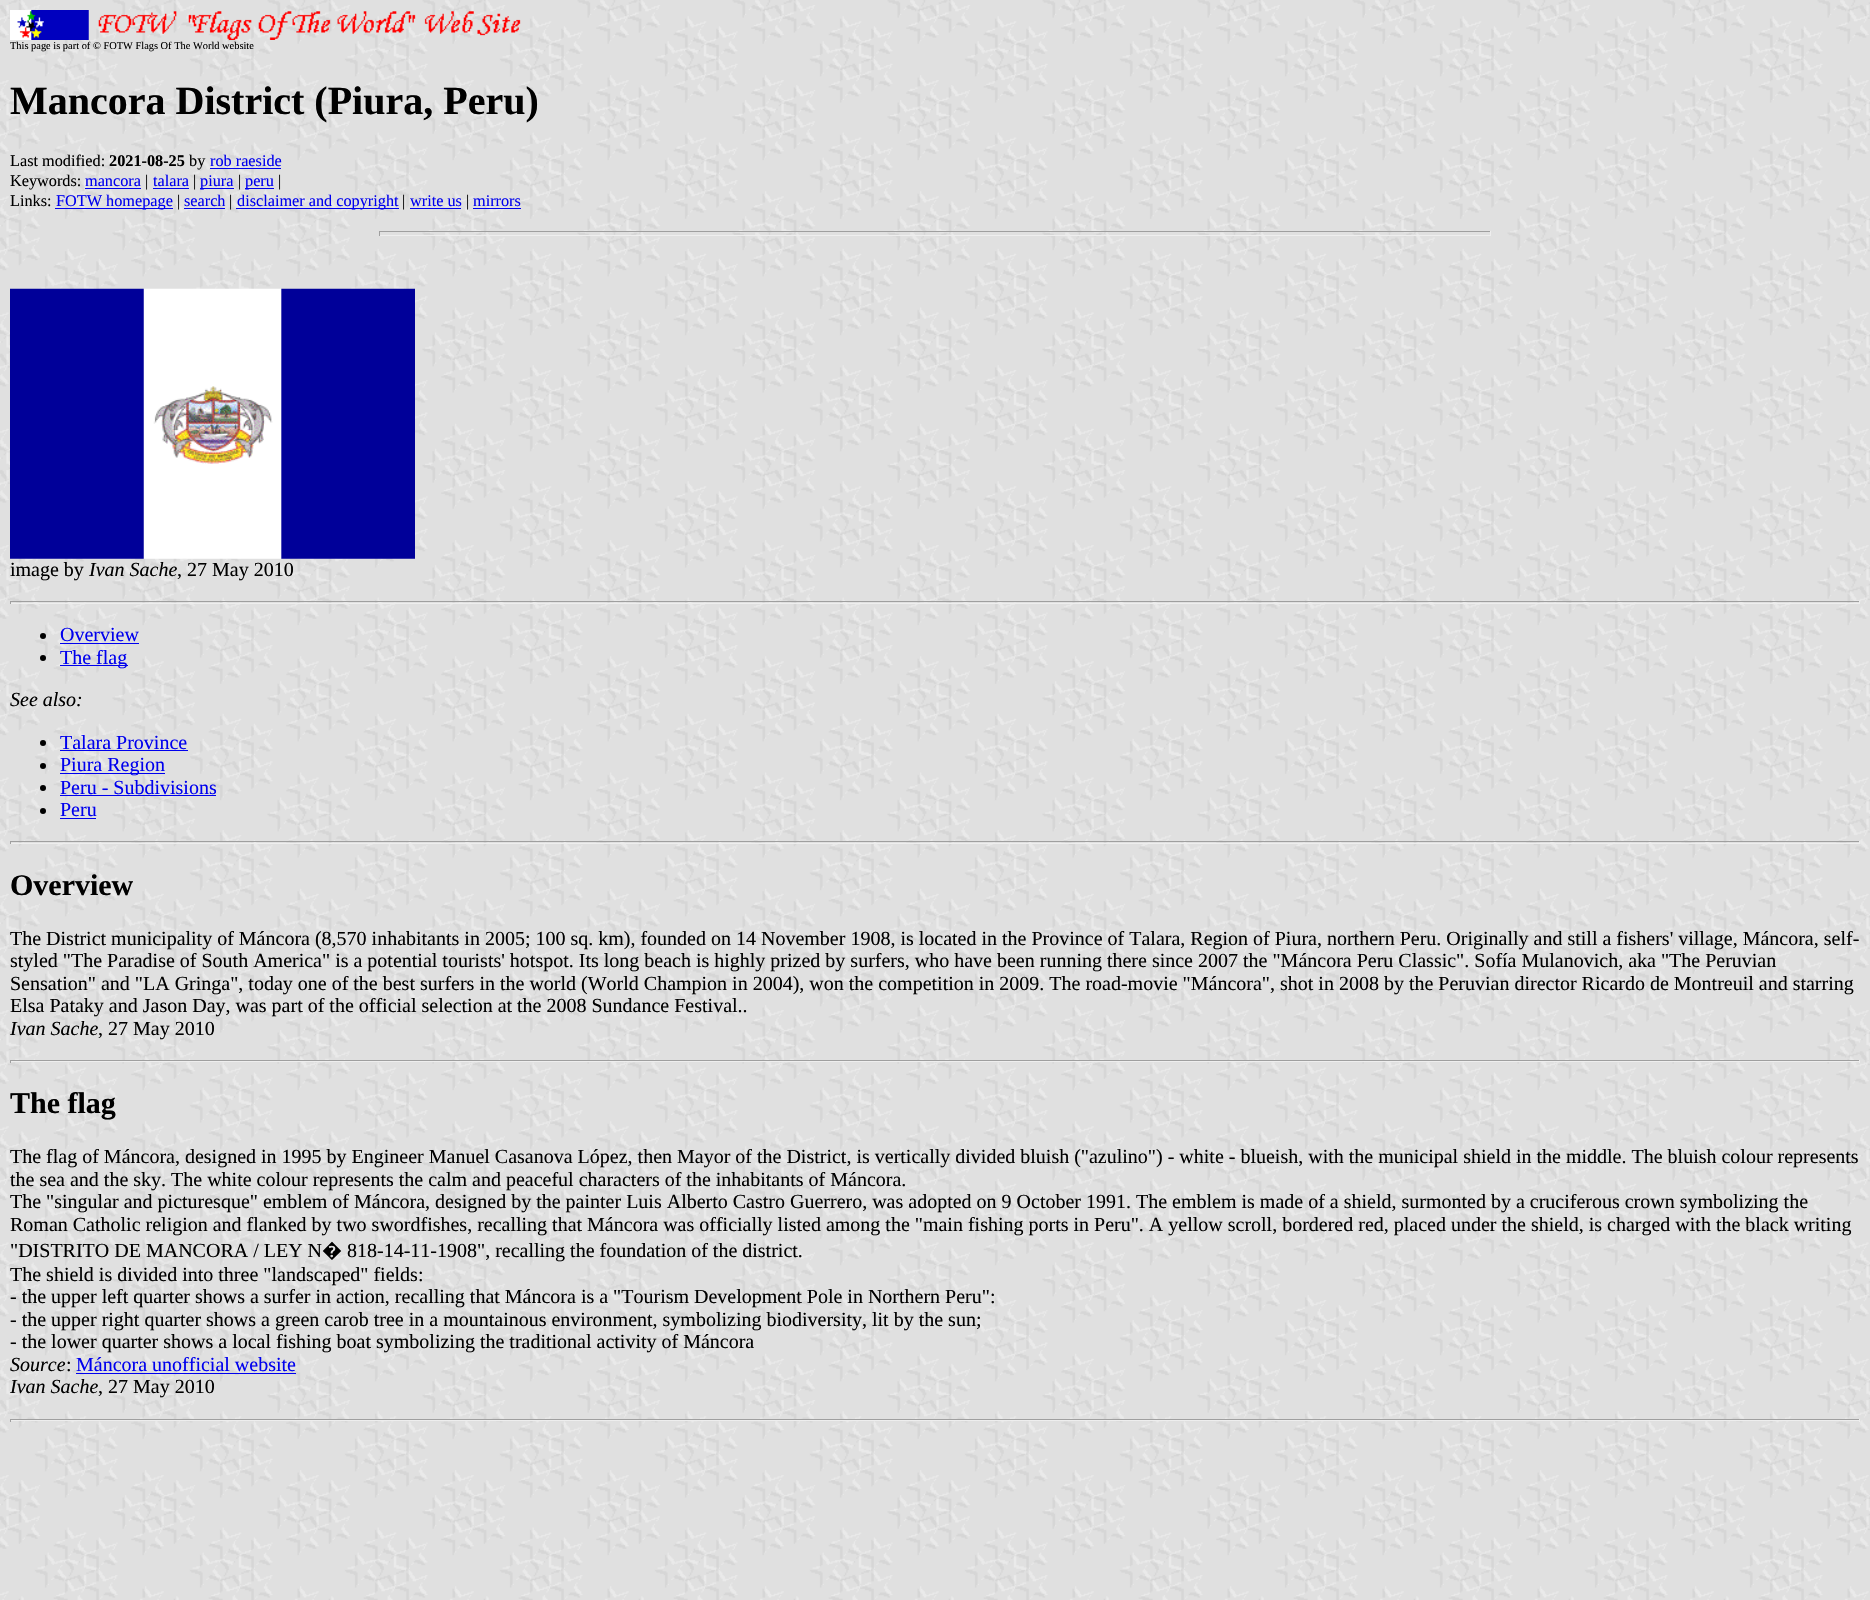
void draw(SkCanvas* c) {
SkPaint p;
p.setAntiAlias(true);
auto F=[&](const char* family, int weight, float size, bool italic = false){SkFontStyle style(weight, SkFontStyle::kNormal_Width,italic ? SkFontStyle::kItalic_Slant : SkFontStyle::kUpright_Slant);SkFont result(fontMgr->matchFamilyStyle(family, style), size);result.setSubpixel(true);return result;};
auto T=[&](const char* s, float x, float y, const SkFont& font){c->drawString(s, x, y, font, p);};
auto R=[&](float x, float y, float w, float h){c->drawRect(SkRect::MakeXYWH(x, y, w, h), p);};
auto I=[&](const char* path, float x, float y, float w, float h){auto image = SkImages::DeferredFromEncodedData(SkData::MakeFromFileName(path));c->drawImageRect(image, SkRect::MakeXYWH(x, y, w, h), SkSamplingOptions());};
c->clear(0xffffffff);
I("1.png",0,0,1870,1600);
I("2.png",10,10,511,30);
auto f1 = F("Liberation Serif",400,10.4);
p.setColor(0xff000000);
T("This page is part of © FOTW Flags Of The World website",10,49,f1);
auto f2 = F("Liberation Serif",700,40);
T("Mancora District (Piura, Peru)",10,114,f2);
auto f3 = F("Liberation Serif",400,16.25);
T("Last modified:",10,166,f3);
auto f4 = F("Liberation Serif",700,16.25);
T("2021-08-25",109,166,f4);
T("by",189,166,f3);
p.setColor(0xff0000ee);
T("rob raeside",210,166,f3);
R(210,168,71,1);
p.setColor(0xff000000);
T("Keywords:",10,186,f3);
p.setColor(0xff0000ee);
T("mancora",85,186,f3);
R(85,188,56,1);
p.setColor(0xff000000);
T("|",145,186,f3);
p.setColor(0xff0000ee);
T("talara",153,186,f3);
R(153,188,36,1);
p.setColor(0xff000000);
T("|",193,186,f3);
p.setColor(0xff0000ee);
R(200,188,34,1);
T("piura",200,186,f3);
p.setColor(0xff000000);
T("|",238,186,f3);
p.setColor(0xff0000ee);
R(245,188,29,1);
T("peru",245,186,f3);
p.setColor(0xff000000);
T("|",278,186,f3);
T("Links:",10,206,f3);
p.setColor(0xff0000ee);
R(55,208,118,1);
T("FOTW homepage",56,206,f3);
p.setColor(0xff000000);
T("|",177,206,f3);
p.setColor(0xff0000ee);
T("search",184,206,f3);
R(184,208,41,1);
p.setColor(0xff000000);
T("|",229,206,f3);
p.setColor(0xff0000ee);
R(236,208,163,1);
T("disclaimer and copyright",237,206,f3);
p.setColor(0xff000000);
T("|",402,206,f3);
p.setColor(0xff0000ee);
T("write us",410,206,f3);
R(410,208,51,1);
p.setColor(0xff000000);
T("|",466,206,f3);
p.setColor(0xff0000ee);
T("mirrors",473,206,f3);
R(473,208,48,1);
p.setColor(0xff9f9f9f);
R(379,231,1112,1);
p.setColor(0xffeeeeee);
R(1490,231,1,5);
R(379,235,1112,1);
p.setColor(0xff9f9f9f);
R(379,231,1,5);
I("3.png",10,288,405,271);
auto f5 = F("Liberation Serif",400,20);
p.setColor(0xff000000);
T("image by",10,576,f5);
auto f6 = F("Liberation Serif",400,20,true);
T("Ivan Sache",89,576,f6);
T(", 27 May 2010",177,576,f5);
p.setColor(0xff9f9f9f);
R(10,601,1850,1);
p.setColor(0xffeeeeee);
R(1859,601,1,3);
R(10,603,1850,1);
p.setColor(0xff9f9f9f);
R(10,601,1,3);
p.setColor(0xff000000);
c->drawCircle(43,636,3,p);
p.setColor(0xff0000ee);
T("Overview",60,641,f5);
R(60,643,79,1);
p.setColor(0xff000000);
c->drawCircle(43,658,3,p);
p.setColor(0xff0000ee);
R(60,665,68,1);
T("The flag",60,664,f5);
p.setColor(0xff000000);
T("See also:",10,706,f6);
c->drawCircle(43,743,3,p);
p.setColor(0xff0000ee);
T("Talara Province",60,749,f5);
R(60,750,128,1);
p.setColor(0xff000000);
c->drawCircle(43,766,3,p);
p.setColor(0xff0000ee);
R(60,773,105,1);
T("Piura Region",60,771,f5);
p.setColor(0xff000000);
c->drawCircle(43,788,3,p);
p.setColor(0xff0000ee);
T("Peru - Subdivisions",60,794,f5);
R(60,795,156,1);
p.setColor(0xff000000);
c->drawCircle(43,811,3,p);
p.setColor(0xff0000ee);
T("Peru",60,816,f5);
R(60,818,36,1);
p.setColor(0xff9f9f9f);
R(10,841,1850,1);
p.setColor(0xffeeeeee);
R(1859,841,1,3);
R(10,843,1850,1);
p.setColor(0xff9f9f9f);
R(10,841,1,3);
auto f7 = F("Liberation Serif",700,30);
p.setColor(0xff000000);
T("Overview",10,895,f7);
T("The District municipality of Máncora (8,570 inhabitants in 2005; 100 sq. km), founded on 14 November 1908, is located in the Province of Talara, Region of Piura, northern Peru. Originally and still a fishers' village, Máncora, self-",10,945,f5);
T("styled \"The Paradise of South America\" is a potential tourists' hotspot. Its long beach is highly prized by surfers, who have been running there since 2007 the \"Máncora Peru Classic\". Sofía Mulanovich, aka \"The Peruvian",10,967,f5);
T("Sensation\" and \"LA Gringa\", today one of the best surfers in the world (World Champion in 2004), won the competition in 2009. The road-movie \"Máncora\", shot in 2008 by the Peruvian director Ricardo de Montreuil and starring",10,990,f5);
T("Elsa Pataky and Jason Day, was part of the official selection at the 2008 Sundance Festival..",10,1012,f5);
T("Ivan Sache",10,1035,f6);
T(", 27 May 2010",98,1035,f5);
p.setColor(0xff9f9f9f);
R(10,1060,1850,1);
p.setColor(0xffeeeeee);
R(1859,1060,1,3);
R(10,1061,1850,1);
p.setColor(0xff9f9f9f);
R(10,1060,1,3);
p.setColor(0xff000000);
T("The flag",10,1113,f7);
T("The flag of Máncora, designed in 1995 by Engineer Manuel Casanova López, then Mayor of the District, is vertically divided bluish (\"azulino\") - white - blueish, with the municipal shield in the middle. The bluish colour represents",10,1163,f5);
T("the sea and the sky. The white colour represents the calm and peaceful characters of the inhabitants of Máncora.",10,1186,f5);
T("The \"singular and picturesque\" emblem of Máncora, designed by the painter Luis Alberto Castro Guerrero, was adopted on 9 October 1991. The emblem is made of a shield, surmonted by a cruciferous crown symbolizing the",10,1208,f5);
T("Roman Catholic religion and flanked by two swordfishes, recalling that Máncora was officially listed among the \"main fishing ports in Peru\". A yellow scroll, bordered red, placed under the shield, is charged with the black writing",10,1231,f5);
T("\"DISTRITO DE MANCORA / LEY N",10,1257,f5);
auto f8 = F("Noto Sans",400,20);
T("�",322,1257,f8);
T("818-14-11-1908\", recalling the foundation of the district.",347,1257,f5);
T("The shield is divided into three \"landscaped\" fields:",10,1281,f5);
T("- the upper left quarter shows a surfer in action, recalling that Máncora is a \"Tourism Development Pole in Northern Peru\":",10,1303,f5);
T("- the upper right quarter shows a green carob tree in a mountainous environment, symbolizing biodiversity, lit by the sun;",10,1326,f5);
T("- the lower quarter shows a local fishing boat symbolizing the traditional activity of Máncora",10,1348,f5);
T("Source",10,1371,f6);
T(":",66,1371,f5);
p.setColor(0xff0000ee);
T("Máncora unofficial website",76,1371,f5);
R(76,1373,220,1);
p.setColor(0xff000000);
T("Ivan Sache",10,1393,f6);
T(", 27 May 2010",98,1393,f5);
p.setColor(0xff9f9f9f);
R(10,1419,1850,1);
p.setColor(0xffeeeeee);
R(1859,1419,1,3);
R(10,1420,1850,1);
p.setColor(0xff9f9f9f);
R(10,1419,1,3);
}
